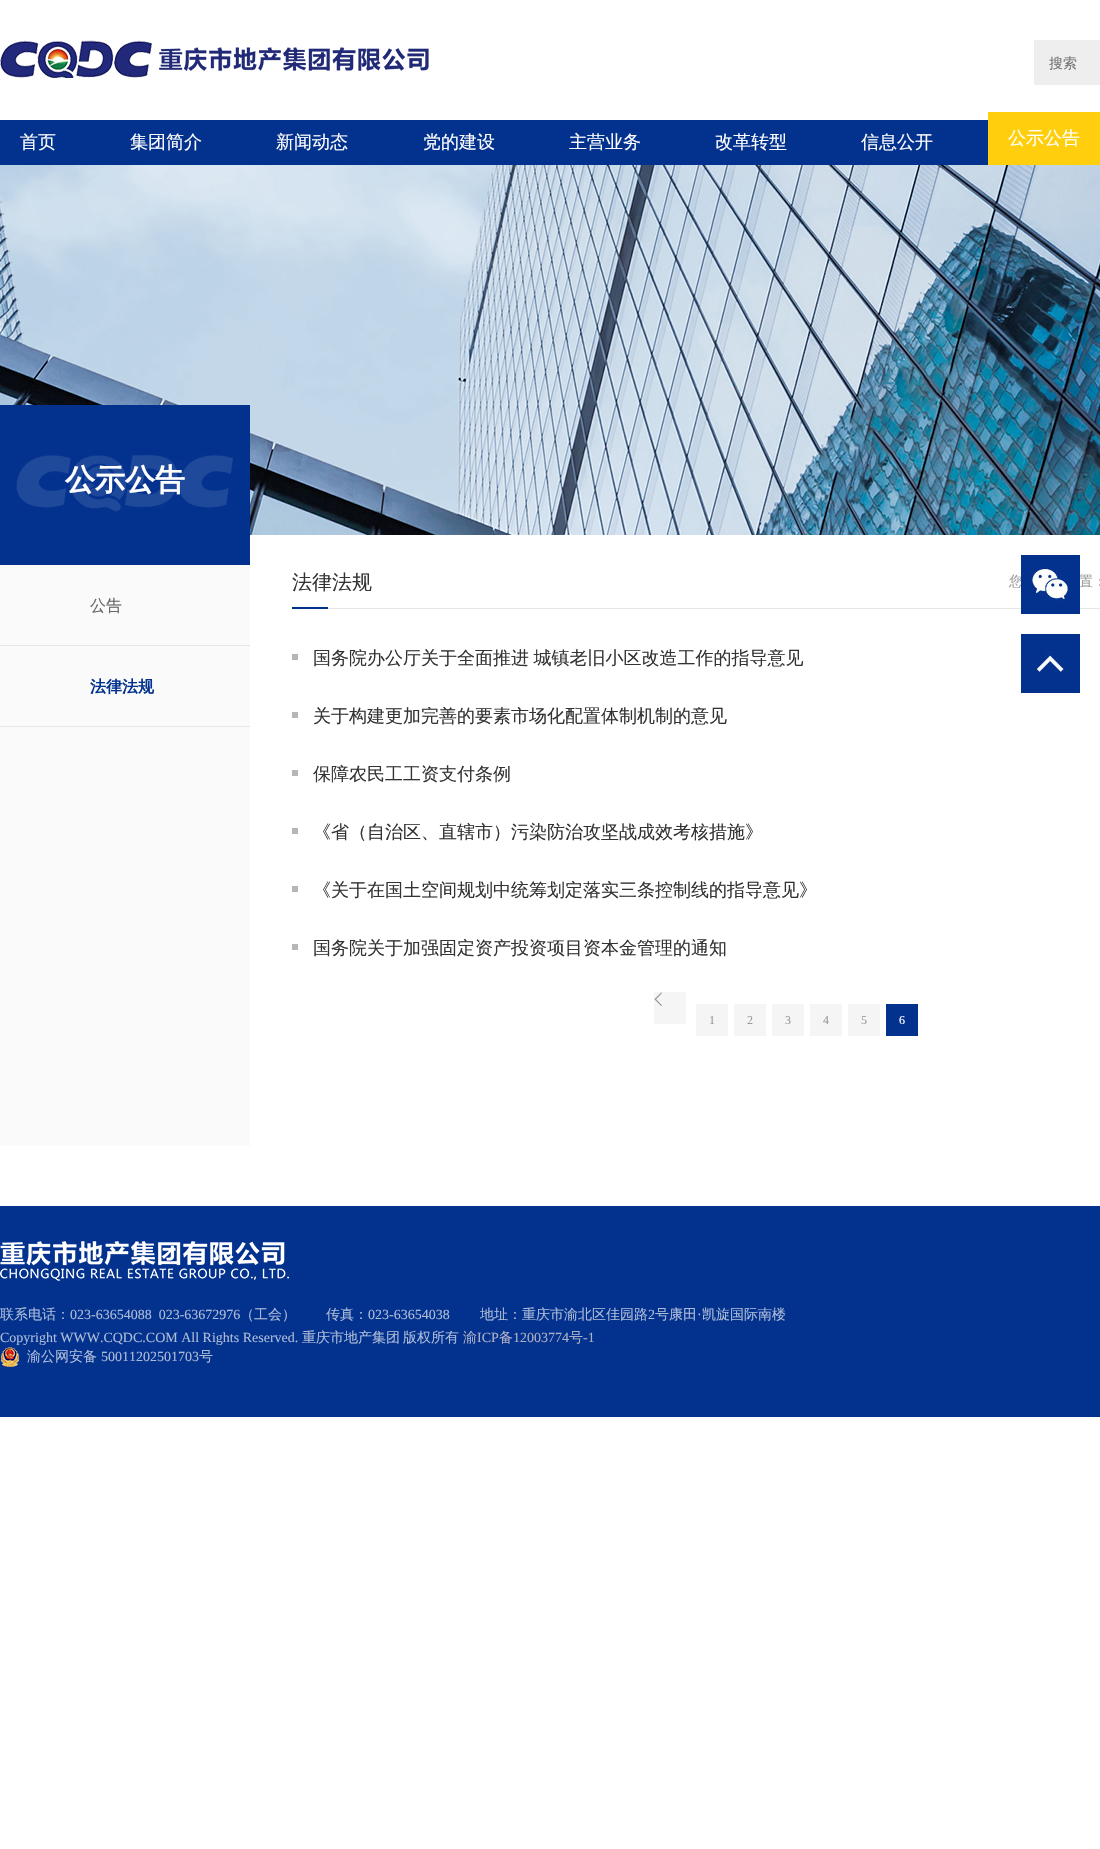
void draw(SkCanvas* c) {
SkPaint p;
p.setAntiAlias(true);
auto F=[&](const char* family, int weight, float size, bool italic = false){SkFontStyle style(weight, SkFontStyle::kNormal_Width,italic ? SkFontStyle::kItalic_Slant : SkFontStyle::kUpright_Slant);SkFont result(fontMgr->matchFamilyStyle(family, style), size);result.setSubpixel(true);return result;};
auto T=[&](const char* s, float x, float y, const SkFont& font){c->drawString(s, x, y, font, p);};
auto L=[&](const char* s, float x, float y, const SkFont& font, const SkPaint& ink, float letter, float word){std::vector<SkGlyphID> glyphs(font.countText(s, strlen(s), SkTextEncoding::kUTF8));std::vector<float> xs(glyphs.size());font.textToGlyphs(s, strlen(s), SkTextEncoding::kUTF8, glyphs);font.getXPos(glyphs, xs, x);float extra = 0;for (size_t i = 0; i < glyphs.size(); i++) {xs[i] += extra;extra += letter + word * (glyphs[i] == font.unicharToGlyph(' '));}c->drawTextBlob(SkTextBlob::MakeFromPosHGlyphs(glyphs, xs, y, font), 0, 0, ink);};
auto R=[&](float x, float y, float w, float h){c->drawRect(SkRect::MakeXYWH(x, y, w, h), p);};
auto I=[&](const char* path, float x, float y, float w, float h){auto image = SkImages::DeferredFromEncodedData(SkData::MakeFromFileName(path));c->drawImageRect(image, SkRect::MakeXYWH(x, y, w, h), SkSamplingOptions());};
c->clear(0xffffffff);
I("1.png",0,40,429,38);
p.setColor(0xffeeeeee);
R(1034,40,66,45);
auto f1 = F("WenQuanYi Zen Hei",500,14);
p.setColor(0xff757575);
T("搜索",1049,68,f1);
p.setColor(0xff03328e);
R(0,120,988,45);
auto f2 = F("WenQuanYi Zen Hei",500,18);
p.setColor(0xffffffff);
T("首页",20,148,f2);
T("集团简介",130,148,f2);
T("新闻动态",276,148,f2);
T("党的建设",423,148,f2);
T("主营业务",569,148,f2);
T("改革转型",715,148,f2);
T("信息公开",861,148,f2);
p.setColor(0xffffcf0e);
R(988,112,112,53);
p.setColor(0xffffffff);
T("公示公告",1008,144,f2);
I("2.png",0,165,1100,370);
p.setColor(0xfffafafa);
R(0,565,250,581);
I("3.png",0,405,250,160);
auto f3 = F("WenQuanYi Zen Hei",700,30);
p.setColor(0xffffffff);
T("公示公告",65,490,f3);
p.setColor(0xffe6e6e6);
R(0,645,250,1);
auto f4 = F("WenQuanYi Zen Hei",500,16);
p.setColor(0xff666666);
T("公告",90,611,f4);
p.setColor(0xffe6e6e6);
R(0,726,250,1);
auto f5 = F("WenQuanYi Zen Hei",700,16);
p.setColor(0xff03328e);
T("法律法规",90,692,f5);
p.setColor(0xffe6e6e6);
R(328,608,772,1);
auto f6 = F("WenQuanYi Zen Hei",500,20);
p.setColor(0xff333333);
T("法律法规",292,589,f6);
p.setColor(0xff03328e);
R(292,607,36,2);
p.setColor(0xff999999);
T("您",1009,586,f1);
T("置：",1079,586,f1);
p.setColor(0xffb6b6b6);
R(292,654,6,6);
p.setColor(0xff333333);
L("国务院办公厅关于全面推进 城镇老旧小区改造工作的指导意见",313,664,f2,p,0,-1);
p.setColor(0xffb6b6b6);
R(292,712,6,6);
c->save();
c->clipRect(SkRect::MakeXYWH(298,707,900,18));
p.setColor(0xff333333);
T("关于构建更加完善的要素市场化配置体制机制的意见",313,722,f2);
c->restore();
p.setColor(0xffb6b6b6);
R(292,770,6,6);
p.setColor(0xff333333);
T("保障农民工工资支付条例",313,780,f2);
p.setColor(0xffb6b6b6);
R(292,828,6,6);
p.setColor(0xff333333);
T("《省（自治区、直辖市）污染防治攻坚战成效考核措施》",313,838,f2);
p.setColor(0xffb6b6b6);
R(292,886,6,6);
p.setColor(0xff333333);
T("《关于在国土空间规划中统筹划定落实三条控制线的指导意见》",313,896,f2);
p.setColor(0xffb6b6b6);
R(292,944,6,6);
p.setColor(0xff333333);
T("国务院关于加强固定资产投资项目资本金管理的通知",313,954,f2);
p.setColor(0xfff5f5f5);
R(654,992,32,32);
I("4.png",654,992,8,14);
R(696,1004,32,32);
auto f7 = F("Liberation Serif",400,12);
p.setColor(0xff999999);
T("1",709,1024,f7);
p.setColor(0xfff5f5f5);
R(734,1004,32,32);
p.setColor(0xff999999);
T("2",747,1024,f7);
p.setColor(0xfff5f5f5);
R(772,1004,32,32);
p.setColor(0xff999999);
T("3",785,1024,f7);
p.setColor(0xfff5f5f5);
R(810,1004,32,32);
p.setColor(0xff999999);
T("4",823,1024,f7);
p.setColor(0xfff5f5f5);
R(848,1004,32,32);
p.setColor(0xff999999);
T("5",861,1024,f7);
p.setColor(0xff03328e);
R(886,1004,32,32);
p.setColor(0xffffffff);
T("6",899,1024,f7);
I("5.png",1021,555,59,59);
I("6.png",1021,634,59,59);
p.setColor(0xff03328e);
R(0,1206,1100,211);
I("7.png",0,1241,289,40);
p.setColor(0xffaebcd8);
T("联系电话：",0,1319,f1);
auto f8 = F("Liberation Serif",400,14);
T("023-63654088  023-63672976",70,1319,f8);
T("（工会）",240,1319,f1);
T("传真：",326,1319,f1);
T("023-63654038",368,1319,f8);
T("地址：重庆市渝北区佳园路",480,1319,f1);
T("2",648,1319,f8);
T("号康田",655,1319,f1);
T("·",697,1319,f8);
T("凯旋国际南楼",702,1319,f1);
T("Copyright WWW.CQDC.COM All Rights Reserved.",0,1342,f8);
T("重庆市地产集团",302,1342,f1);
T("版权所有",403,1342,f1);
p.setColor(0xffaeafc3);
T("渝",463,1342,f1);
T("ICP",477,1342,f8);
T("备",499,1342,f1);
T("12003774",513,1342,f8);
T("号",569,1342,f1);
T("-1",583,1342,f8);
I("8.png",1,1347,18,20);
p.setColor(0xffaebcd8);
T("渝公网安备",27,1361,f1);
T("50011202501703",101,1361,f8);
T("号",199,1361,f1);
}
